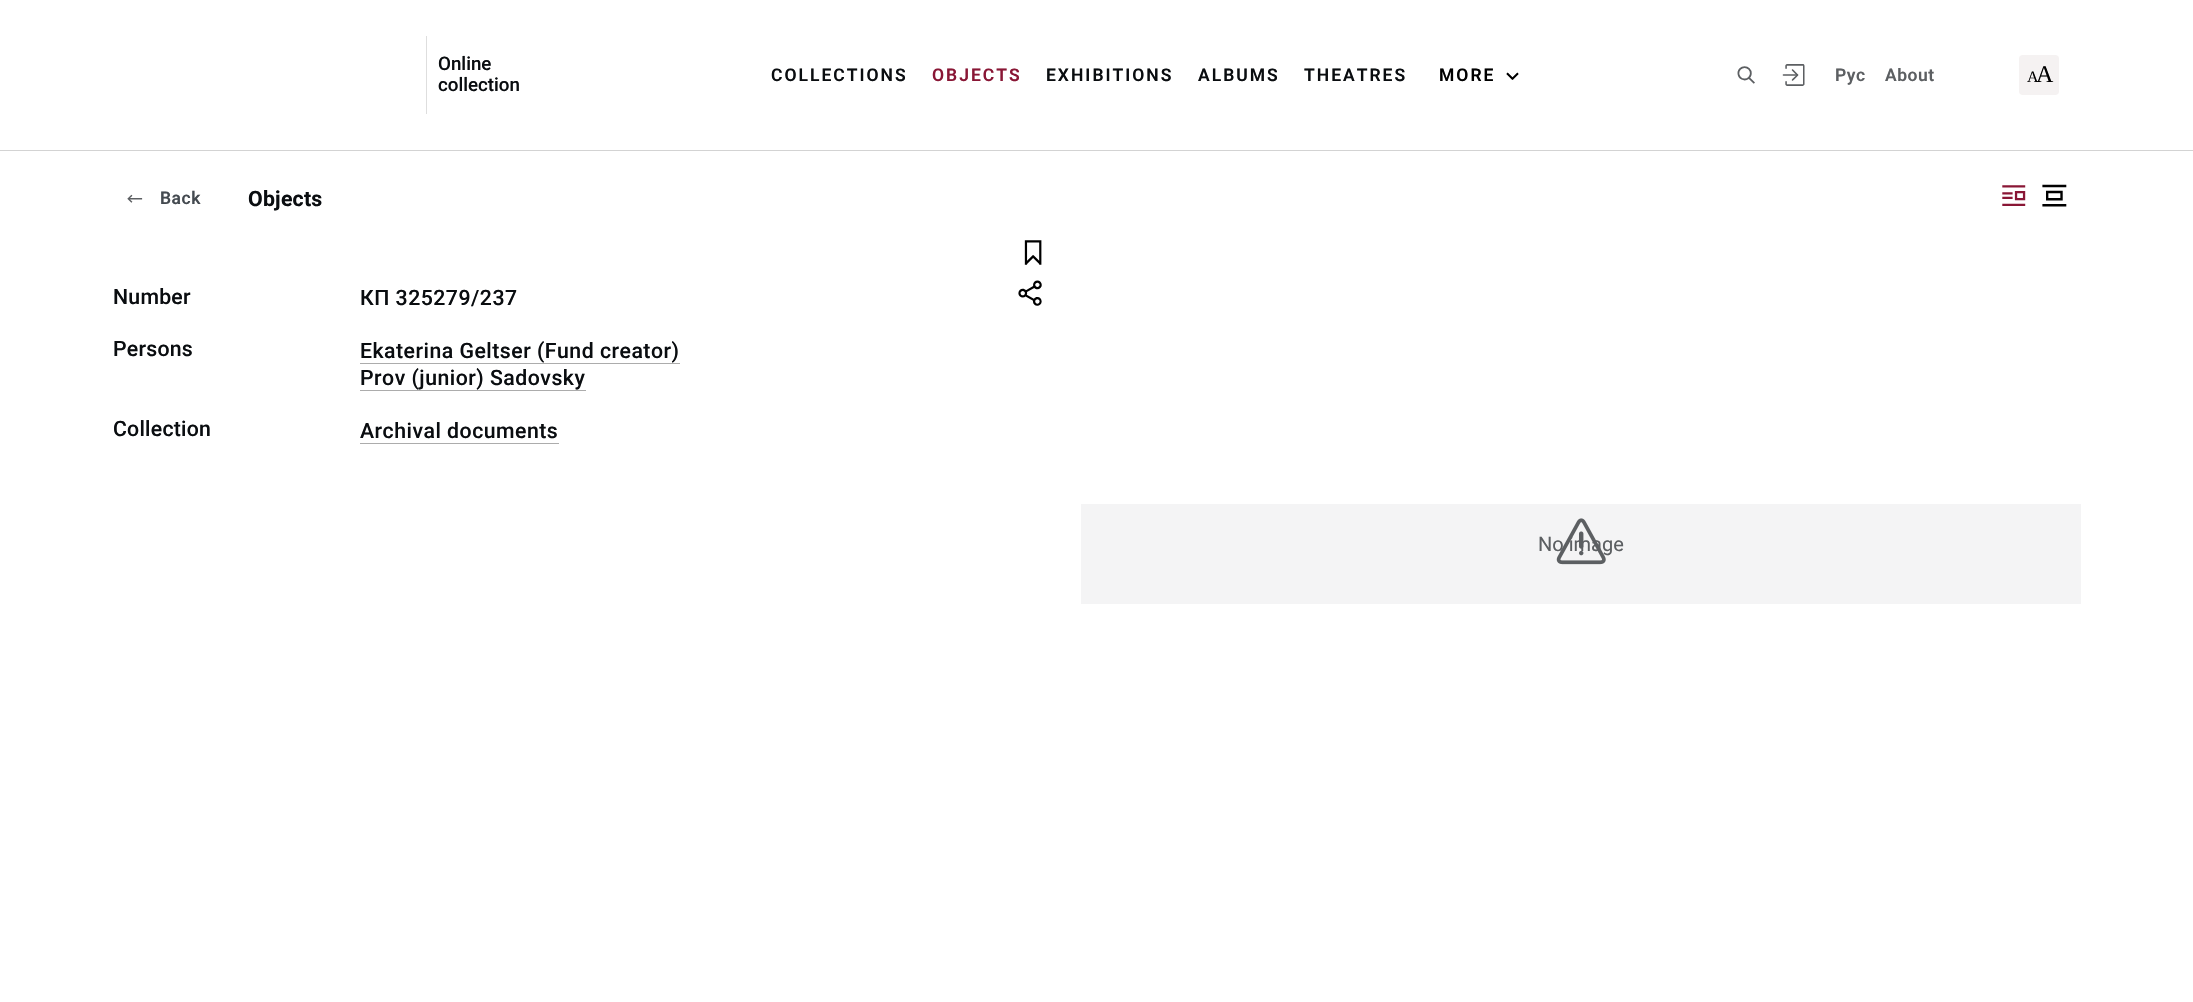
void draw(SkCanvas* c) {
SkPaint p;
p.setAntiAlias(true);
auto F=[&](const char* family, int weight, float size, bool italic = false){SkFontStyle style(weight, SkFontStyle::kNormal_Width,italic ? SkFontStyle::kItalic_Slant : SkFontStyle::kUpright_Slant);SkFont result(fontMgr->matchFamilyStyle(family, style), size);result.setSubpixel(true);return result;};
auto T=[&](const char* s, float x, float y, const SkFont& font){c->drawString(s, x, y, font, p);};
auto L=[&](const char* s, float x, float y, const SkFont& font, const SkPaint& ink, float letter, float word){std::vector<SkGlyphID> glyphs(font.countText(s, strlen(s), SkTextEncoding::kUTF8));std::vector<float> xs(glyphs.size());font.textToGlyphs(s, strlen(s), SkTextEncoding::kUTF8, glyphs);font.getXPos(glyphs, xs, x);float extra = 0;for (size_t i = 0; i < glyphs.size(); i++) {xs[i] += extra;extra += letter + word * (glyphs[i] == font.unicharToGlyph(' '));}c->drawTextBlob(SkTextBlob::MakeFromPosHGlyphs(glyphs, xs, y, font), 0, 0, ink);};
auto R=[&](float x, float y, float w, float h){c->drawRect(SkRect::MakeXYWH(x, y, w, h), p);};
auto Q=[&](float x, float y, float w, float h, float radius){c->drawRoundRect(SkRect::MakeXYWH(x, y, w, h), radius, radius, p);};
auto I=[&](const char* path, float x, float y, float w, float h){auto image = SkImages::DeferredFromEncodedData(SkData::MakeFromFileName(path));c->drawImageRect(image, SkRect::MakeXYWH(x, y, w, h), SkSamplingOptions());};
c->clear(0xffffffff);
p.setColor(0xffd3d3d3);
R(0,150,2193,1);
p.setColor(0xffdedede);
R(426,36,1,78);
auto f1 = F("Roboto",500,18.75);
p.setColor(0xff0a0d10);
T("Online",438,70,f1);
T("collection",438,91,f1);
auto f2 = F("Roboto",600,17.5);
L("COLLECTIONS",771,81,f2,p,2,0);
p.setColor(0xff891635);
L("OBJECTS",932,81,f2,p,2,0);
p.setColor(0xff0a0d10);
L("EXHIBITIONS",1046,81,f2,p,2,0);
L("ALBUMS",1198,81,f2,p,2,0);
L("THEATRES",1304,81,f2,p,2,0);
p.setColor(0xff000000);
L("MORE",1439,81,f2,p,2,0);
I("1.png",1506,72,13,8);
I("2.png",1737,66,18,18);
I("3.png",1782,64,23,22);
p.setColor(0xff5c5f62);
L("Рус",1835,81,f2,p,.5,0);
L("About",1885,81,f2,p,.5,0);
p.setColor(0xfff5f2f2);
Q(2019,55,40,40,4);
auto f3 = F("Liberation Serif",400,16);
p.setColor(0xff000000);
T("А",2027,82,f3);
auto f4 = F("Liberation Serif",400,24);
T("А",2036,82,f4);
I("4.png",127,194,16,9);
p.setColor(0xff444a50);
L("Back",160,204,f2,p,.5,0);
auto f5 = F("Roboto",700,21.25);
p.setColor(0xff0a0d10);
L("Objects",248,206,f5,p,.25,0);
I("5.png",2002,185,24,21);
I("6.png",2042,184,25,23);
I("7.png",1024,240,18,25);
I("8.png",1018,280,24,26);
auto f6 = F("Roboto",500,21.25);
L("Number",113,304,f6,p,.25,0);
L("КП 325279/237",360,305,f6,p,.5,0);
L("Persons",113,356,f6,p,.25,0);
L("Ekaterina Geltser (Fund creator)",360,358,f6,p,.5,0);
p.setColor(0xffacacac);
R(360,363,320,1);
p.setColor(0xff0a0d10);
L("Prov (junior) Sadovsky",360,385,f6,p,.5,0);
p.setColor(0xffacacac);
R(360,390,226,1);
p.setColor(0xff0a0d10);
L("Collection",113,436,f6,p,.25,0);
L("Archival documents",360,438,f6,p,.5,0);
p.setColor(0xffacacac);
R(360,443,199,1);
p.setColor(0xfff4f4f5);
R(1081,504,1000,100);
auto f7 = F("Roboto",400,20);
p.setColor(0xff5c5f62);
T("No image",1538,551,f7);
I("9.png",1556,518,50,47);
}
